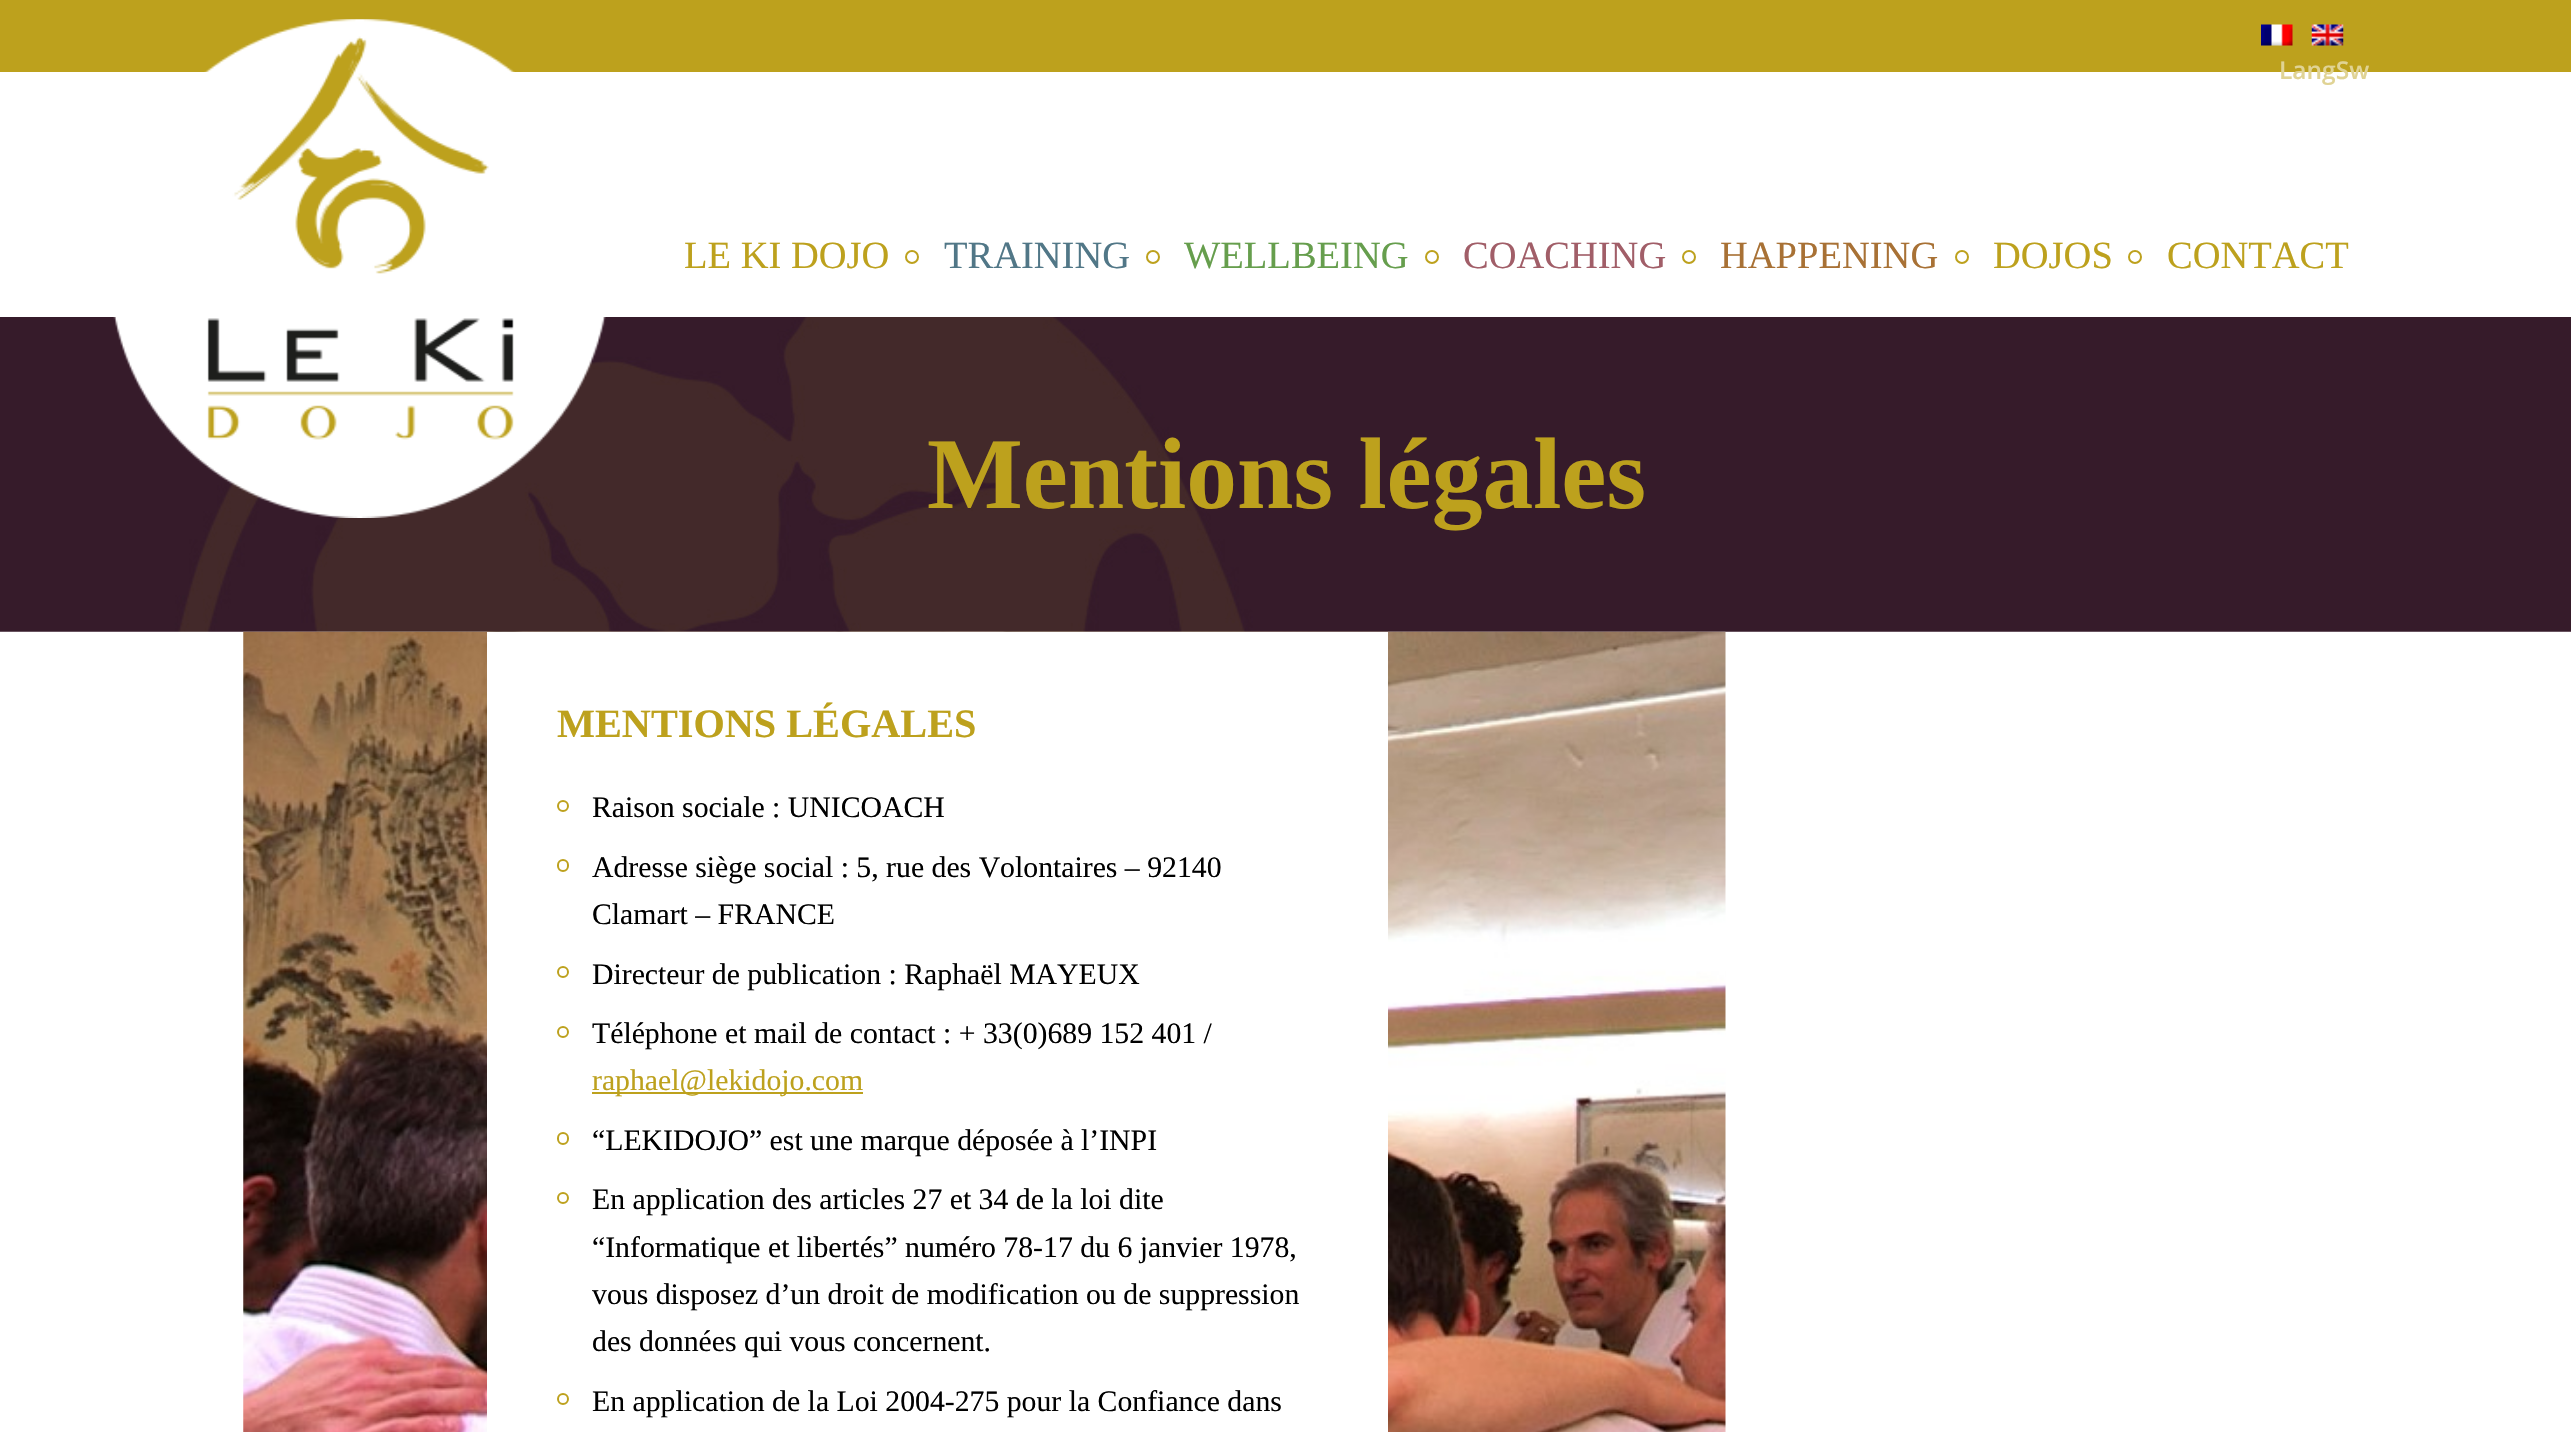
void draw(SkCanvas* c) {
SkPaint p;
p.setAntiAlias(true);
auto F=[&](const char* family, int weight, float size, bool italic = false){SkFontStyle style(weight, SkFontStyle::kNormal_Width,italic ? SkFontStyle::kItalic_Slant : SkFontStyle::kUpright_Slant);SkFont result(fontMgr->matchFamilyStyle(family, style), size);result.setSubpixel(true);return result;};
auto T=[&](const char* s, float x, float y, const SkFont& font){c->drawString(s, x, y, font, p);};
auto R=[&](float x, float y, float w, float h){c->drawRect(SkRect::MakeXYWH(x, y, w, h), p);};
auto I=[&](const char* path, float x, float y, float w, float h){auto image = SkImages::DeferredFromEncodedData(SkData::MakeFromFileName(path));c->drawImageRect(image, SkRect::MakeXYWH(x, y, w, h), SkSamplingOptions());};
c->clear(0xffffffff);
p.setColor(0xffbda11d);
R(0,0,2571,72);
I("1.png",2261,24,32,22);
I("2.png",2311,24,33,22);
auto f1 = F("Open Sans",600,24.5);
p.setColor(0xffe0d394);
T("LangSw",2279,79,f1);
I("4.png",0,317,2571,315);
I("3.png",113,19,493,499);
auto f2 = F("Liberation Serif",400,38.5);
p.setColor(0xffbda11d);
T("LE KI DOJO",684,268,f2);
p.setStroke(true);
p.setStrokeWidth(2);
c->drawCircle(912,257,6,p);
p.setStroke(false);
p.setColor(0xff517787);
T("TRAINING",944,268,f2);
p.setStroke(true);
p.setColor(0xffbda11d);
c->drawCircle(1153,257,6,p);
p.setStroke(false);
p.setColor(0xff669e4d);
T("WELLBEING",1184,268,f2);
p.setStroke(true);
p.setColor(0xffbda11d);
c->drawCircle(1432,257,6,p);
p.setStroke(false);
p.setColor(0xffa15e68);
T("COACHING",1463,268,f2);
p.setStroke(true);
p.setColor(0xffbda11d);
c->drawCircle(1689,257,6,p);
p.setStroke(false);
p.setColor(0xffa87135);
T("HAPPENING",1720,268,f2);
p.setStroke(true);
p.setColor(0xffbda11d);
c->drawCircle(1962,257,6,p);
p.setStroke(false);
T("DOJOS",1993,268,f2);
p.setStroke(true);
c->drawCircle(2135,257,6,p);
p.setStroke(false);
T("CONTACT",2167,268,f2);
auto f3 = F("Liberation Serif",700,101.5);
T("Mentions légales",927,508,f3);
I("5.png",243,631,1483,801);
p.setColor(0xffffffff);
R(487,632,901,800);
auto f4 = F("Liberation Serif",700,40.25);
p.setColor(0xffbda11d);
T("MENTIONS LÉGALES",557,737,f4);
p.setStroke(true);
c->drawCircle(563,806,5,p);
auto f5 = F("Liberation Serif",400,29.75);
p.setStroke(false);
p.setColor(0xff000000);
T("Raison sociale : UNICOACH",592,817,f5);
p.setStroke(true);
p.setColor(0xffbda11d);
c->drawRoundRect(SkRect::MakeXYWH(558,860,10,11),5,5,p);
p.setStroke(false);
p.setColor(0xff000000);
T("Adresse siège social : 5, rue des Volontaires – 92140",592,877,f5);
T("Clamart – FRANCE",592,924,f5);
p.setStroke(true);
p.setColor(0xffbda11d);
c->drawCircle(563,972,5,p);
p.setStroke(false);
p.setColor(0xff000000);
T("Directeur de publication : Raphaël MAYEUX",592,984,f5);
p.setStroke(true);
p.setColor(0xffbda11d);
c->drawCircle(563,1032,5,p);
p.setStroke(false);
p.setColor(0xff000000);
T("Téléphone et mail de contact : + 33(0)689 152 401 /",592,1043,f5);
p.setColor(0xffbda11d);
R(592,1092,271,2);
T("raphael@lekidojo.com",592,1090,f5);
p.setStroke(true);
c->drawRoundRect(SkRect::MakeXYWH(558,1133,10,11),5,5,p);
p.setStroke(false);
p.setColor(0xff000000);
T("“LEKIDOJO” est une marque déposée à l’INPI",592,1150,f5);
p.setStroke(true);
p.setColor(0xffbda11d);
c->drawCircle(563,1198,5,p);
p.setStroke(false);
p.setColor(0xff000000);
T("En application des articles 27 et 34 de la loi dite",592,1209,f5);
T("“Informatique et libertés” numéro 78-17 du 6 janvier 1978,",592,1257,f5);
T("vous disposez d’un droit de modification ou de suppression",592,1304,f5);
T("des données qui vous concernent.",592,1351,f5);
p.setStroke(true);
p.setColor(0xffbda11d);
c->drawCircle(563,1399,5,p);
p.setStroke(false);
p.setColor(0xff000000);
T("En application de la Loi 2004-275 pour la Confiance dans",592,1411,f5);
}
